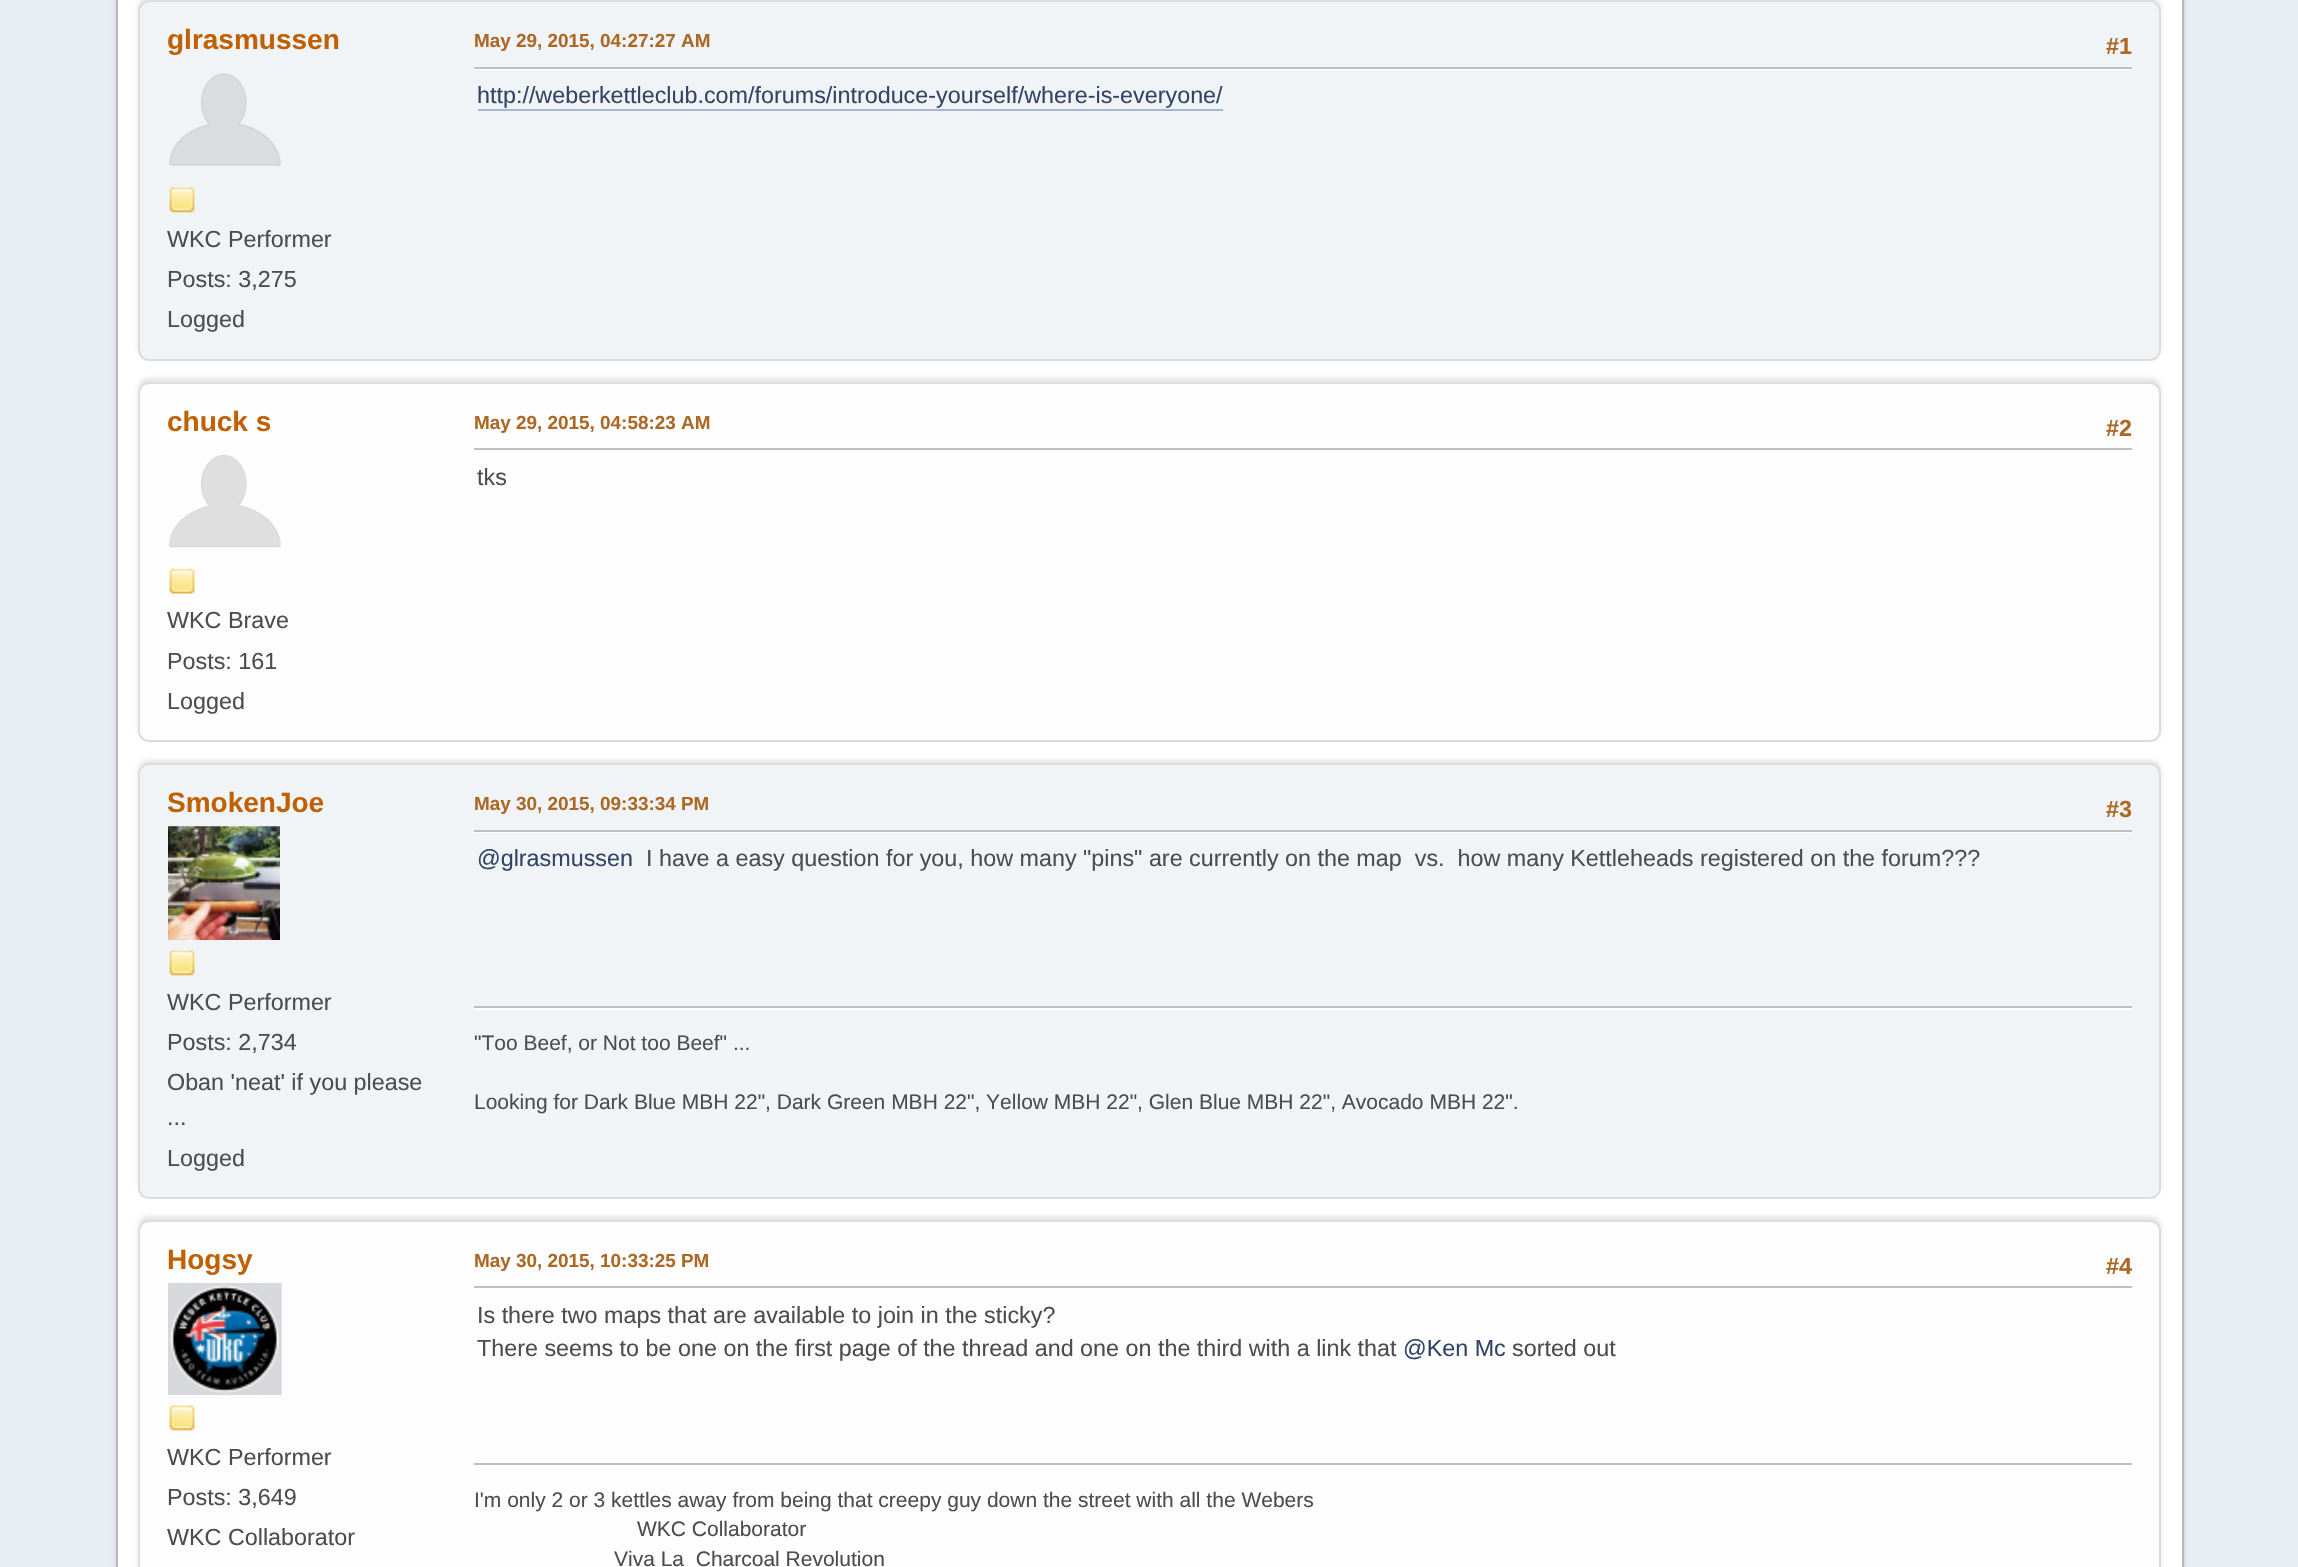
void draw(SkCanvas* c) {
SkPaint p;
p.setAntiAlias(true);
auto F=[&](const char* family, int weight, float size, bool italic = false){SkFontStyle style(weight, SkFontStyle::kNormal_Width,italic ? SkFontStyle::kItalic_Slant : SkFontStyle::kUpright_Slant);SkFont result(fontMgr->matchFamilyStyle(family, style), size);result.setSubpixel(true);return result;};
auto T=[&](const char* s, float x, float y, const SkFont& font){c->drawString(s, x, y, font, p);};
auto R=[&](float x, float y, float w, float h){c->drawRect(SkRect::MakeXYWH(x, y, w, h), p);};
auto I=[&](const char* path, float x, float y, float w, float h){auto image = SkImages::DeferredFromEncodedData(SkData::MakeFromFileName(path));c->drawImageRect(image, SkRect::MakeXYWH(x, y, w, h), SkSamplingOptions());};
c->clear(0xffe9eef2);
p.setColor(0x24000000);
p.setMaskFilter(SkMaskFilter::MakeBlur(kNormal_SkBlurStyle, 2.5));
c->drawRoundRect(SkRect::MakeXYWH(116,-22,2068,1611),14,14,p);
p.setMaskFilter(nullptr);
p.setColor(0xffffffff);
c->drawRect(SkRect::MakeXYWH(117,-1,2066,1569),p);
p.setStroke(true);
p.setStrokeWidth(2);
p.setColor(0xffb8b8b8);
c->drawRect(SkRect::MakeXYWH(117,-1,2066,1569),p);
p.setStroke(false);
p.setColor(0x1a000000);
p.setMaskFilter(SkMaskFilter::MakeBlur(kNormal_SkBlurStyle, 2));
c->drawRoundRect(SkRect::MakeXYWH(138,-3,2023,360),11,11,p);
p.setMaskFilter(nullptr);
p.setColor(0xfff0f4f7);
c->drawRoundRect(SkRect::MakeXYWH(139,1,2021,359),10,10,p);
p.setStroke(true);
p.setColor(0xffdddddd);
c->drawRoundRect(SkRect::MakeXYWH(139,1,2021,359),10,10,p);
auto f1 = F("Liberation Sans",700,28);
p.setStroke(false);
p.setColor(0xffc06002);
T("glrasmussen",167,49,f1);
I("1.png",169,73,112,93);
I("2.png",169,187,26,26);
auto f2 = F("Liberation Sans",400,23.33);
p.setColor(0xff4d4d4d);
T("WKC Performer",167,247,f2);
T("Posts: 3,275",167,287,f2);
T("Logged",167,327,f2);
auto f3 = F("Liberation Sans",700,18.9);
p.setColor(0xffad6825);
T("May 29, 2015, 04:27:27 AM",474,47,f3);
auto f4 = F("Liberation Sans",700,23.33);
T("#1",2106,54,f4);
p.setColor(0xffffffff);
R(474,69,1658,1);
p.setColor(0xffbfbfbf);
R(474,67,1658,2);
p.setColor(0xff334466);
T("http://weberkettleclub.com/forums/introduce-yourself/where-is-everyone/",477,103,f2);
p.setColor(0xffa8b6cf);
R(478,109,745,2);
p.setColor(0x1a000000);
p.setMaskFilter(SkMaskFilter::MakeBlur(kNormal_SkBlurStyle, 2));
c->drawRoundRect(SkRect::MakeXYWH(138,378,2023,361),11,11,p);
p.setMaskFilter(nullptr);
p.setColor(0xfffdfdfd);
c->drawRoundRect(SkRect::MakeXYWH(139,383,2021,358),10,10,p);
p.setStroke(true);
p.setColor(0xffdddddd);
c->drawRoundRect(SkRect::MakeXYWH(139,383,2021,358),10,10,p);
p.setStroke(false);
p.setColor(0xffc06002);
T("chuck s",167,431,f1);
I("3.png",169,455,112,93);
I("4.png",169,568,26,26);
p.setColor(0xff4d4d4d);
T("WKC Brave",167,628,f2);
T("Posts: 161",167,669,f2);
T("Logged",167,709,f2);
p.setColor(0xffad6825);
T("May 29, 2015, 04:58:23 AM",474,429,f3);
T("#2",2106,436,f4);
p.setColor(0xffbfbfbf);
R(474,448,1658,2);
p.setColor(0xff4d4d4d);
T("tks",477,485,f2);
p.setColor(0x1a000000);
p.setMaskFilter(SkMaskFilter::MakeBlur(kNormal_SkBlurStyle, 2));
c->drawRoundRect(SkRect::MakeXYWH(138,760,2023,435),11,11,p);
p.setMaskFilter(nullptr);
p.setColor(0xfff0f4f7);
c->drawRoundRect(SkRect::MakeXYWH(139,764,2021,434),10,10,p);
p.setStroke(true);
p.setColor(0xffdddddd);
c->drawRoundRect(SkRect::MakeXYWH(139,764,2021,434),10,10,p);
p.setStroke(false);
p.setColor(0xffc06002);
T("SmokenJoe",167,812,f1);
I("5.png",168,826,112,114);
I("2.png",169,950,26,26);
p.setColor(0xff4d4d4d);
T("WKC Performer",167,1010,f2);
T("Posts: 2,734",167,1050,f2);
T("Oban 'neat' if you please",167,1090,f2);
T("...",167,1125,f2);
T("Logged",167,1166,f2);
p.setColor(0xffad6825);
T("May 30, 2015, 09:33:34 PM",474,810,f3);
T("#3",2106,817,f4);
p.setColor(0xffffffff);
R(474,832,1658,1);
p.setColor(0xffbfbfbf);
R(474,830,1658,2);
p.setColor(0xff334466);
T("@glrasmussen",477,866,f2);
p.setColor(0xff4d4d4d);
T("I have a easy question for you, how many \"pins\" are currently on the map  vs.  how many Kettleheads registered on the forum?\077?",646,866,f2);
p.setColor(0xffffffff);
R(474,1008,1658,2);
p.setColor(0xffbfbfbf);
R(474,1006,1658,2);
auto f5 = F("Liberation Sans",400,21);
p.setColor(0xff4d4d4d);
T("\"Too Beef, or Not too Beef\" ...",474,1050,f5);
T("Looking for Dark Blue MBH 22\", Dark Green MBH 22\", Yellow MBH 22\", Glen Blue MBH 22\", Avocado MBH 22\".",474,1109,f5);
p.setColor(0x1a000000);
p.setMaskFilter(SkMaskFilter::MakeBlur(kNormal_SkBlurStyle, 2));
c->drawRoundRect(SkRect::MakeXYWH(138,1216,2023,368),11,11,p);
p.setMaskFilter(nullptr);
p.setColor(0xfffdfdfd);
c->drawRoundRect(SkRect::MakeXYWH(139,1221,2021,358),10,10,p);
p.setStroke(true);
p.setColor(0xffdddddd);
c->drawRoundRect(SkRect::MakeXYWH(139,1221,2021,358),10,10,p);
p.setStroke(false);
p.setColor(0xffc06002);
T("Hogsy",167,1269,f1);
I("6.png",168,1283,114,112);
I("7.png",169,1405,26,26);
p.setColor(0xff4d4d4d);
T("WKC Performer",167,1465,f2);
T("Posts: 3,649",167,1505,f2);
T("WKC Collaborator",167,1545,f2);
p.setColor(0xffad6825);
T("May 30, 2015, 10:33:25 PM",474,1267,f3);
T("#4",2106,1274,f4);
p.setColor(0xffbfbfbf);
R(474,1286,1658,2);
p.setColor(0xff4d4d4d);
T("Is there two maps that are available to join in the sticky?",477,1323,f2);
T("There seems to be one on the first page of the thread and one on the third with a link that",477,1356,f2);
p.setColor(0xff334466);
T("@Ken Mc",1403,1356,f2);
p.setColor(0xff4d4d4d);
T("sorted out",1512,1356,f2);
p.setColor(0xffbfbfbf);
R(474,1463,1658,2);
p.setColor(0xff4d4d4d);
T("I'm only 2 or 3 kettles away from being that creepy guy down the street with all the Webers",474,1507,f5);
T("WKC Collaborator",637,1536,f5);
T("Viva La  Charcoal Revolution",614,1566,f5);
}
